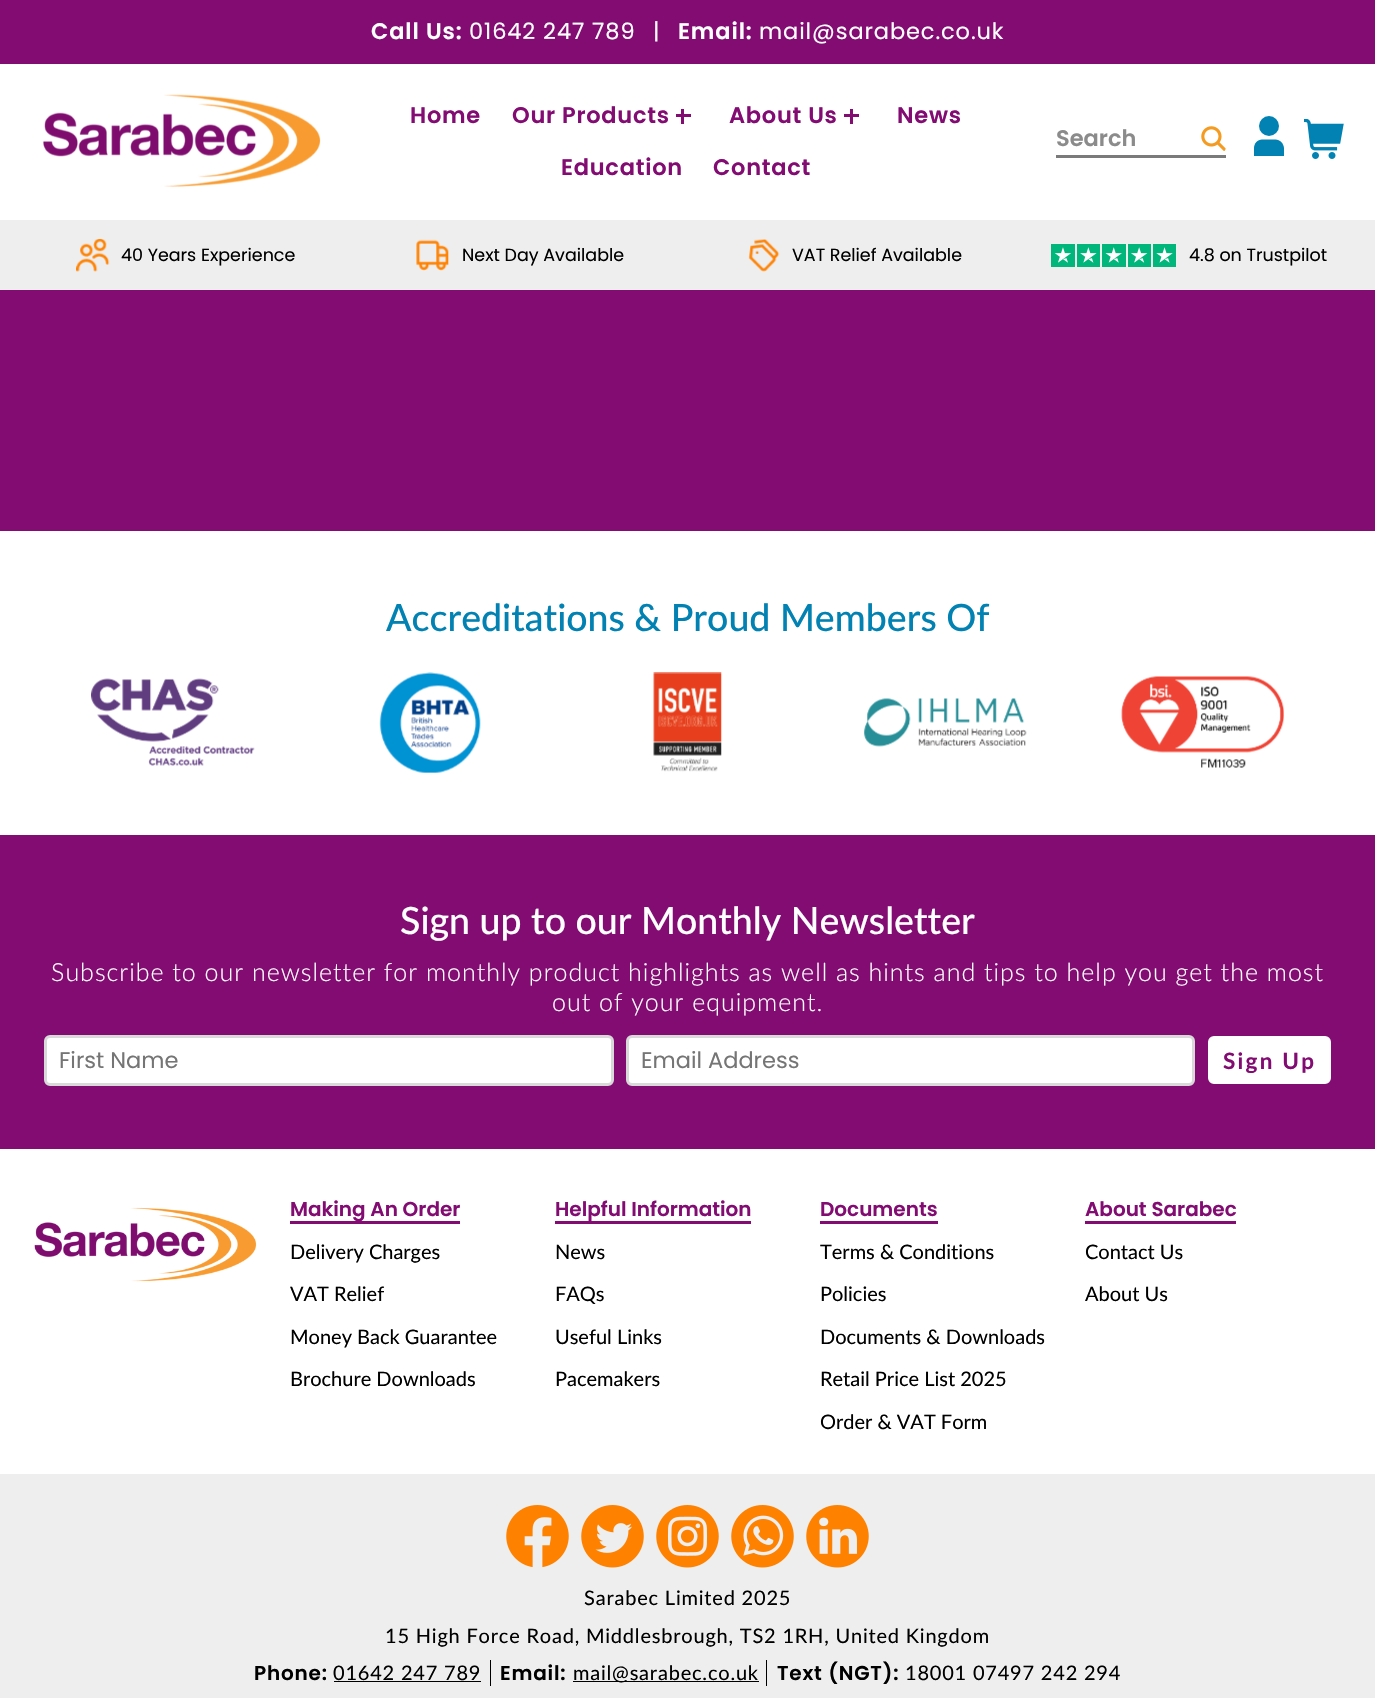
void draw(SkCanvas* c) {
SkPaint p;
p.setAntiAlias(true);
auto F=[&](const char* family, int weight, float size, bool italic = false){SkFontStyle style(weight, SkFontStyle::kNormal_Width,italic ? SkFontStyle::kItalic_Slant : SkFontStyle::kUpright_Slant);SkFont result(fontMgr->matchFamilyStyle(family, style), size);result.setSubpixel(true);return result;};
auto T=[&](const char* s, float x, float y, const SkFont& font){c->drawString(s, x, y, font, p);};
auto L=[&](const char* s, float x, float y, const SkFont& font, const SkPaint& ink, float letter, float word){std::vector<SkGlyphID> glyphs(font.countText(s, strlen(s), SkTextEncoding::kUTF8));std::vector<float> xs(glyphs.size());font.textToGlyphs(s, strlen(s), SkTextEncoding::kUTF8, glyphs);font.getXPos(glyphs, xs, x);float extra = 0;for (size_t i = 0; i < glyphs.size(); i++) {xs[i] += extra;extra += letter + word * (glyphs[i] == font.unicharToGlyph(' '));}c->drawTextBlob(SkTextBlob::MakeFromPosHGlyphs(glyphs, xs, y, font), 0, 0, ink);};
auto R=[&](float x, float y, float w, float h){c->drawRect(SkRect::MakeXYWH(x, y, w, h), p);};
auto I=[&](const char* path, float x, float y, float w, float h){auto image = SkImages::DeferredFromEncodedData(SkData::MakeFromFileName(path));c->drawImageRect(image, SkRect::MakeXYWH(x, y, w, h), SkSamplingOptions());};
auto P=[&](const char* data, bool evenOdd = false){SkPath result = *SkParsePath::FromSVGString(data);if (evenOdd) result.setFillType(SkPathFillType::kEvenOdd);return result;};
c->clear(0xffffffff);
p.setColor(0xff820c72);
R(0,0,1375,531);
auto f1 = F("Poppins",600,22.5);
p.setColor(0xffffffff);
L("Call Us:",371,39,f1,p,.9,0);
auto f2 = F("Poppins",400,22.5);
L("01642 247 789",469,39,f2,p,.9,0);
L("|",653,39,f2,p,.9,0);
L("Email:",678,39,f1,p,.9,0);
L("mail@sarabec.co.uk",759,39,f2,p,.9,0);
R(0,64,1375,156);
I("1.png",42,94,279,93);
p.setColor(0xff820c72);
L("Home",410,123,f1,p,.75,0);
L("Our Products",512,123,f1,p,.75,0);
R(681,109,3,15);
R(676,114,15,3);
L("About Us",729,123,f1,p,.75,0);
R(850,109,3,15);
R(844,114,15,3);
L("News",897,123,f1,p,.75,0);
L("Education",561,175,f1,p,.75,0);
L("Contact",713,175,f1,p,.75,0);
p.setColor(0xff7a7a7a);
R(1056,155,170,3);
p.setColor(0xff8b8b8b);
T("Search",1056,146,f1);
I("2.png",1201,126,25,25);
p.setColor(0xff0182b2);
c->drawCircle(1269,126,10,p);
c->drawPath(P("M1275.5 139.5h-13.5c-4.5 0-8 4-8 8.5v8h30v-8c-.5-4.5-4-8.5-8.5-8.5z"),p);
I("3.png",1304,119,40,40);
p.setColor(0xffeeeeee);
R(0,220,1375,70);
I("4.png",76,239,34,33);
auto f3 = F("Poppins",400,17.5);
p.setColor(0xff000000);
T("40 Years Experience",121,261,f3);
I("5.png",416,239,33,32);
T("Next Day Available",462,261,f3);
I("6.png",748,239,32,33);
T("VAT Relief Available",792,261,f3);
I("7.png",1051,244,125,23);
T("4.8 on Trustpilot",1189,261,f3);
auto f4 = F("Lato",500,37.5);
p.setColor(0xff0182b2);
T("Accreditations & Proud Members Of",386,631,f4);
I("8.png",91,678,164,88);
I("9.png",379,672,102,101);
I("10.png",653,672,69,100);
I("11.png",864,698,163,49);
I("12.png",1121,676,163,92);
p.setColor(0xff820c72);
R(0,835,1375,314);
p.setColor(0xffffffff);
T("Sign up to our Monthly Newsletter",400,934,f4);
auto f5 = F("Lato",300,25);
L("Subscribe to our newsletter for monthly product highlights as well as hints and tips to help you get the most",51,981,f5,p,1,0);
L("out of your equipment.",552,1011,f5,p,1,0);
c->drawRoundRect(SkRect::MakeXYWH(45.5,1036.5,567,48),4.5,4.5,p);
p.setStroke(true);
p.setStrokeWidth(3);
p.setColor(0xffd9d9d9);
c->drawRoundRect(SkRect::MakeXYWH(45.5,1036.5,567,48),4.5,4.5,p);
p.setStroke(false);
p.setColor(0xff757575);
T("First Name",59,1068,f2);
p.setColor(0xffffffff);
c->drawRoundRect(SkRect::MakeXYWH(627.5,1036.5,566,48),4.5,4.5,p);
p.setStroke(true);
p.setColor(0xffd9d9d9);
c->drawRoundRect(SkRect::MakeXYWH(627.5,1036.5,566,48),4.5,4.5,p);
p.setStroke(false);
p.setColor(0xff757575);
T("Email Address",641,1068,f2);
p.setColor(0xffffffff);
c->drawRoundRect(SkRect::MakeXYWH(1209.5,1037.5,120,45),4.5,4.5,p);
p.setStroke(true);
c->drawRoundRect(SkRect::MakeXYWH(1209.5,1037.5,120,45),4.5,4.5,p);
auto f6 = F("Lato",700,22.5);
p.setStroke(false);
p.setColor(0xff820c72);
L("Sign Up",1223,1069,f6,p,2.25,0);
I("13.png",34,1207,223,75);
R(290,1221,170,3);
auto f7 = F("Poppins",600,20);
T("Making An Order",290,1216,f7);
auto f8 = F("Lato",400,20);
p.setColor(0xff000000);
T("Delivery Charges",290,1259,f8);
T("VAT Relief",290,1301,f8);
T("Money Back Guarantee",290,1344,f8);
T("Brochure Downloads",290,1386,f8);
p.setColor(0xff820c72);
R(555,1221,196,3);
T("Helpful Information",555,1216,f7);
p.setColor(0xff000000);
T("News",555,1259,f8);
T("FAQs",555,1301,f8);
T("Useful Links",555,1344,f8);
T("Pacemakers",555,1386,f8);
p.setColor(0xff820c72);
R(820,1221,118,3);
T("Documents",820,1216,f7);
p.setColor(0xff000000);
T("Terms & Conditions",820,1259,f8);
T("Policies",820,1301,f8);
T("Documents & Downloads",820,1344,f8);
T("Retail Price List 2025",820,1386,f8);
T("Order & VAT Form",820,1429,f8);
p.setColor(0xff820c72);
R(1085,1221,151,3);
T("About Sarabec",1085,1216,f7);
p.setColor(0xff000000);
T("Contact Us",1085,1259,f8);
T("About Us",1085,1301,f8);
p.setColor(0xffeeeeee);
R(0,1474,1375,224);
I("14.png",506,1505,63,63);
I("15.png",581,1505,63,63);
I("16.png",656,1505,63,63);
I("17.png",731,1505,63,63);
I("18.png",806,1505,63,63);
p.setColor(0xff000000);
L("Sarabec Limited 2025",584,1605,f8,p,.8,0);
L("15 High Force Road, Middlesbrough, TS2 1RH, United Kingdom",385,1643,f8,p,.8,0);
L("Phone:",254,1680,f7,p,.8,0);
L("01642 247 789",333,1680,f8,p,.8,0);
R(334,1681,147,1);
R(490,1660,1,26);
L("Email:",500,1680,f7,p,.8,0);
R(573,1681,186,1);
L("mail@sarabec.co.uk",573,1680,f8,p,.8,0);
R(766,1660,1,26);
L("Text (NGT):",777,1680,f7,p,.8,0);
L("18001 07497 242 294",905,1680,f8,p,.8,0);
}
